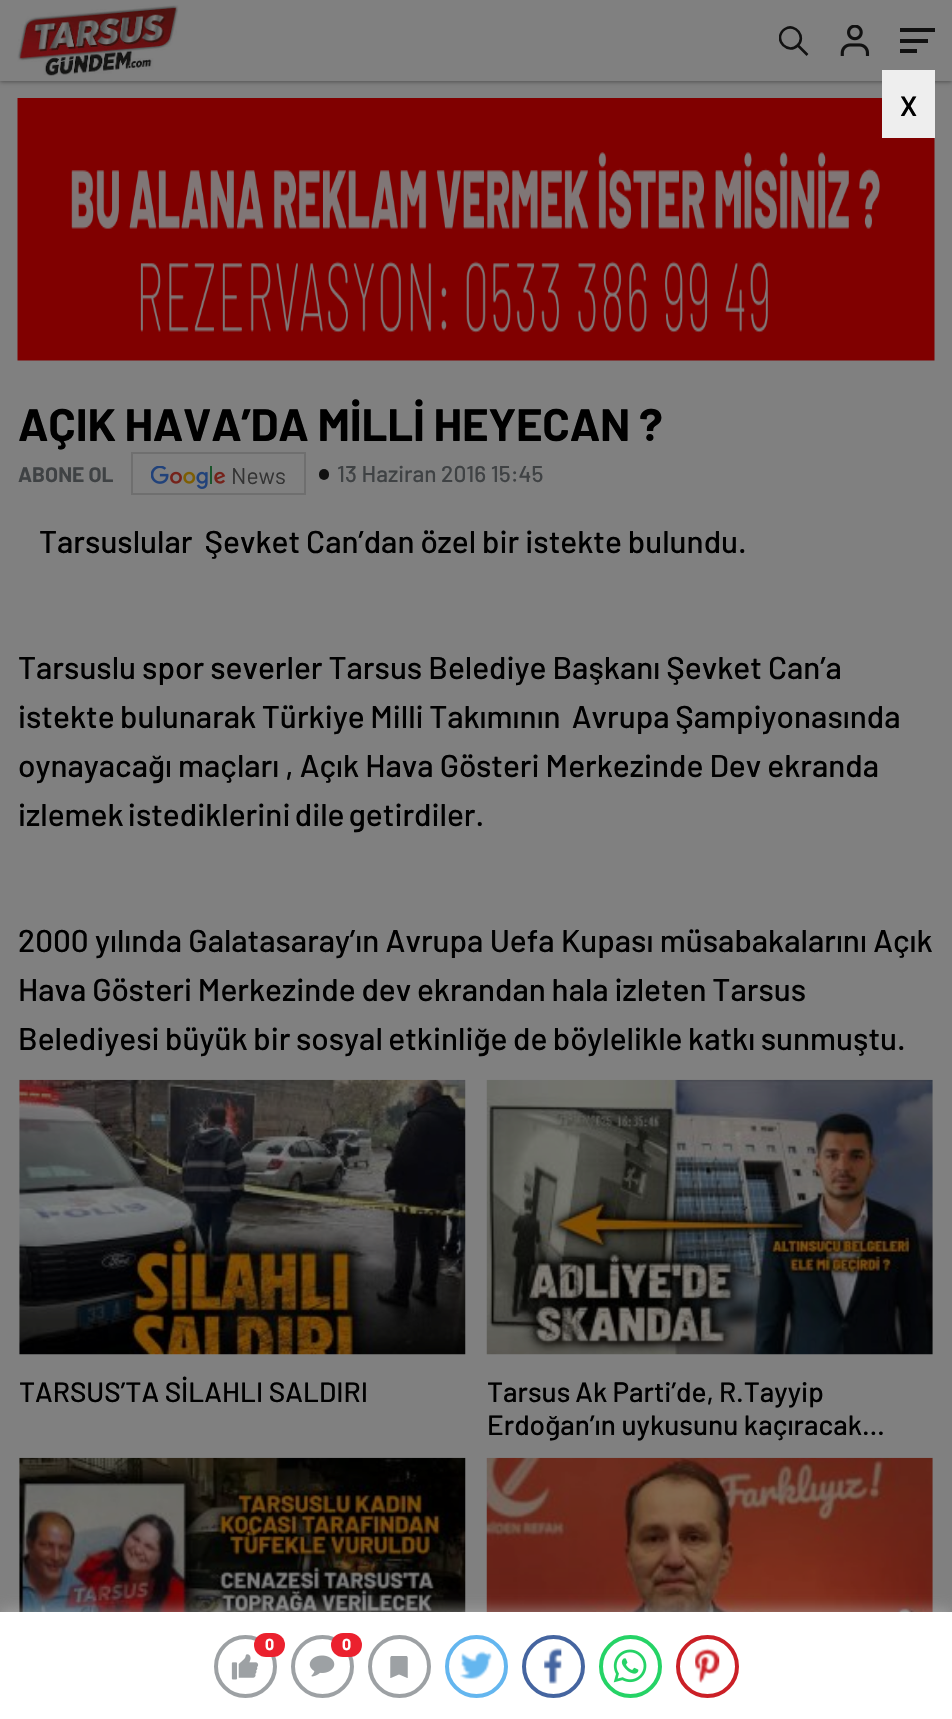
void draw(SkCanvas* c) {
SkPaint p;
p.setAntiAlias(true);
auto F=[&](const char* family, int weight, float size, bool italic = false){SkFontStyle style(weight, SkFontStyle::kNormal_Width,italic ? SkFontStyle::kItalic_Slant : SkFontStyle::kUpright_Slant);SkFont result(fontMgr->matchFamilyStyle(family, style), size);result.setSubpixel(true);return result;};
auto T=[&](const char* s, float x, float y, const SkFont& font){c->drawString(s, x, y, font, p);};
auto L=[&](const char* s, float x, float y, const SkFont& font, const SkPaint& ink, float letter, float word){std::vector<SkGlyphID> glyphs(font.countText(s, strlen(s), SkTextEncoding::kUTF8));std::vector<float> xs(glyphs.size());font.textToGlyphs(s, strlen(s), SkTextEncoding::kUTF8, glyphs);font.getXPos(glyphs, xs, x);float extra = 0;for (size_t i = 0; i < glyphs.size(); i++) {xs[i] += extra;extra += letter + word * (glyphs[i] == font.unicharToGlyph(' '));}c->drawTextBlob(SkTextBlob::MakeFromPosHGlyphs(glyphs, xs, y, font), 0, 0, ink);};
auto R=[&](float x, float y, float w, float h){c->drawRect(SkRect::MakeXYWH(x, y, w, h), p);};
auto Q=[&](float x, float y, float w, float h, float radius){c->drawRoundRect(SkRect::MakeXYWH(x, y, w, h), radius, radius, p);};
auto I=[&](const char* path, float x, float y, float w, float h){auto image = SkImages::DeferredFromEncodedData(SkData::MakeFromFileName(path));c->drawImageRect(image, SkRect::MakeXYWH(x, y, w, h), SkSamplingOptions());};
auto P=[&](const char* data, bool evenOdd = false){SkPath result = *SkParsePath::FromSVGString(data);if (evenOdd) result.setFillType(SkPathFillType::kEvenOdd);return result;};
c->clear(0xff808080);
p.setColor(0x5e000000);
p.setMaskFilter(SkMaskFilter::MakeBlur(kNormal_SkBlurStyle, 2));
c->drawRect(SkRect::MakeXYWH(0,2,952,80),p);
p.setMaskFilter(nullptr);
p.setColor(0xff808080);
R(0,0,952,81);
I("1.png",17,5,162,71);
c->save();
c->clipRect(SkRect::MakeXYWH(779,25,30,33));
p.setStroke(true);
p.setStrokeWidth(2.6);
p.setStrokeCap(SkPaint::kRound_Cap);
p.setColor(0xff111111);
c->drawPath(P("M798.5 46l9 9zm-18.5-8c0-3.5 2-7 5-9c10.5-6.5 21.5 8.5 12.5 16.5c-2 2-4.5 3-7 3c-5.5-.5-10.5-5-10.5-10.5z"),p);
c->restore();
I("2.png",840,25,30,31);
p.setStroke(false);
R(900,28,35,4);
R(900,39,28,4);
R(900,49,17,4);
I("3.png",17,98,918,263);
p.setColor(0xffeeeeee);
R(882,70,53,68);
auto f1 = F("Barlow",600,28);
p.setColor(0xff000000);
T("X",900,116,f1);
auto f2 = F("Barlow",700,45.5);
L("AÇIK HAVA’DA MİLLİ HEYECAN ?",18,441,f2,p,-.25,0);
auto f3 = F("Barlow",700,21);
p.setColor(0xff3f4244);
T("ABONE OL",18,482,f3);
p.setStroke(true);
p.setStrokeWidth(2);
p.setStrokeCap(SkPaint::kButt_Cap);
p.setColor(0xff6f6f6f);
c->drawRect(SkRect::MakeXYWH(132,453,173,41),p);
I("4.png",151,466,75,23);
auto f4 = F("Barlow",400,22.75);
p.setStroke(false);
p.setColor(0xff333333);
T("News",231,484,f4);
p.setColor(0xff111111);
Q(319,469,10,11,5);
auto f5 = F("Barlow",500,22.75);
p.setColor(0xff3f4244);
T("13 Haziran 2016 15:45",337,482,f5);
auto f6 = F("Barlow",500,31.5);
p.setColor(0xff000000);
L("Tarsuslular  Şevket Can’dan özel bir istekte bulundu.",39,553,f6,p,0,-.25);
L("Tarsuslu spor severler Tarsus Belediye Başkanı Şevket Can’a",18,679,f6,p,0,-.25);
L("istekte bulunarak Türkiye Milli Takımının  Avrupa Şampiyonasında",18,728,f6,p,0,-.75);
L("oynayacağı maçları , Açık Hava Gösteri Merkezinde Dev ekranda",18,777,f6,p,0,-.25);
L("izlemek istediklerini dile getirdiler.",18,826,f6,p,0,-2);
T("2000 yılında Galatasaray’ın Avrupa Uefa Kupası müsabakalarını Açık",18,952,f6);
L("Hava Gösteri Merkezinde dev ekrandan hala izleten Tarsus",18,1001,f6,p,0,-.5);
L("Belediyesi büyük bir sosyal etkinliğe de böylelikle katkı sunmuştu.",18,1050,f6,p,0,-.75);
I("14.png",19,1457,447,155);
I("15.png",486,1457,447,155);
p.setColor(0x94bababa);
p.setMaskFilter(SkMaskFilter::MakeBlur(kNormal_SkBlurStyle, 7));
c->drawRect(SkRect::MakeXYWH(0,1610,952,109),p);
p.setMaskFilter(nullptr);
p.setColor(0xffffffff);
R(0,1612,952,107);
p.setStroke(true);
p.setStrokeWidth(4);
p.setColor(0xff9da1a4);
c->drawCircle(245.5,1666.5,29.5,p);
I("5.png",231,1654,28,26);
p.setStroke(false);
p.setColor(0xffeb212e);
Q(254,1633,31,24,12);
auto f7 = F("Barlow",700,16);
p.setColor(0xffffffff);
T("0",265,1650,f7);
p.setStroke(true);
p.setColor(0xff9da1a4);
c->drawCircle(322.5,1666.5,29.5,p);
I("6.png",309,1655,26,22);
p.setStroke(false);
p.setColor(0xffeb212e);
Q(331,1633,31,24,12);
p.setColor(0xffffffff);
T("0",342,1650,f7);
p.setStroke(true);
p.setColor(0xff9da1a4);
c->drawCircle(399.5,1666.5,29.5,p);
I("7.png",390,1656,18,22);
p.setColor(0xff64b6ef);
c->drawCircle(476.5,1666.5,29.5,p);
I("8.png",460,1651,32,29);
p.setColor(0xff4565a0);
c->drawCircle(553.5,1666.5,29.5,p);
I("9.png",544,1648,18,36);
p.setColor(0xff25d366);
c->drawCircle(630.5,1666.5,29.5,p);
I("10.png",613,1649,34,34);
p.setColor(0xffcb2027);
c->drawCircle(707.5,1666.5,29.5,p);
I("11.png",695,1648,25,35);
I("12.png",19,1079,447,276);
auto f8 = F("Barlow",500,28);
p.setStroke(false);
p.setColor(0xff000000);
T("TARSUS’TA SİLAHLI SALDIRI",19,1402,f8);
I("13.png",486,1079,447,276);
L("Tarsus Ak Parti’de, R.Tayyip",487,1402,f8,p,0,-.5);
T("Erdoğan’ın uykusunu kaçıracak…",487,1435,f8);
}
